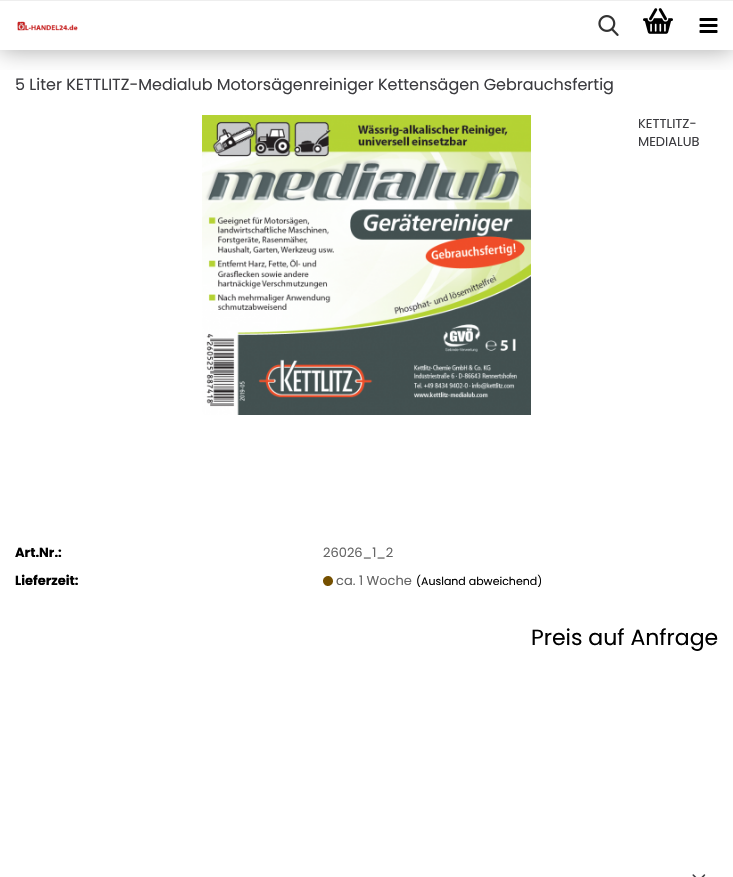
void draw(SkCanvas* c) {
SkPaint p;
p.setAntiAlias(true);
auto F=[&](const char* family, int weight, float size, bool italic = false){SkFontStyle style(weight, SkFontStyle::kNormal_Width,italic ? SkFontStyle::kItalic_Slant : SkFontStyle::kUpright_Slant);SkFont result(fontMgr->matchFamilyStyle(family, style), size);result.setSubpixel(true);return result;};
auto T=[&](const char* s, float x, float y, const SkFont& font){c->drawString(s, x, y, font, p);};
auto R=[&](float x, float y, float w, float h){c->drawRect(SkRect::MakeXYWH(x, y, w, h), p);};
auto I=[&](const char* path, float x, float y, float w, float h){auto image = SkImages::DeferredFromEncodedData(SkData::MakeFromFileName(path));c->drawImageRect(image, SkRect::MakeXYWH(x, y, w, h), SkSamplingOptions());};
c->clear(0xffffffff);
c->save();
c->clipRect(SkRect::MakeXYWH(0,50,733,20));
p.setColor(0x59000000);
p.setMaskFilter(SkMaskFilter::MakeBlur(kNormal_SkBlurStyle, 12.5));
c->drawRect(SkRect::MakeXYWH(0,0,733,50),p);
p.setMaskFilter(nullptr);
c->restore();
p.setColor(0xffeeeeee);
R(0,0,733,1);
I("1.png",17,21,61,10);
I("2.png",598,15,21,21);
I("3.png",643,8,30,26);
I("4.png",699,18,19,15);
auto f1 = F("Poppins",400,16);
p.setColor(0xff3c3c40);
T("5 Liter KETTLITZ-Medialub Motorsägenreiniger Kettensägen Gebrauchsfertig",15,90,f1);
I("5.png",202,115,329,300);
auto f2 = F("Poppins",400,13);
T("KETTLITZ-",638,128,f2);
T("MEDIALUB",638,146,f2);
auto f3 = F("Poppins",700,13);
p.setColor(0xff000000);
T("Art.Nr.:",15,557,f3);
p.setColor(0xff666666);
T("26026_1_2",323,557,f2);
p.setColor(0xff000000);
T("Lieferzeit:",15,585,f3);
I("6.png",323,576,10,10);
p.setColor(0xff666666);
T("ca. 1 Woche",336,585,f2);
auto f4 = F("Poppins",400,11);
p.setColor(0xff000000);
T("(Ausland abweichend)",416,585,f4);
auto f5 = F("Poppins",400,22);
T("Preis auf Anfrage",531,645,f5);
I("7.png",692,874,14,3);
}
